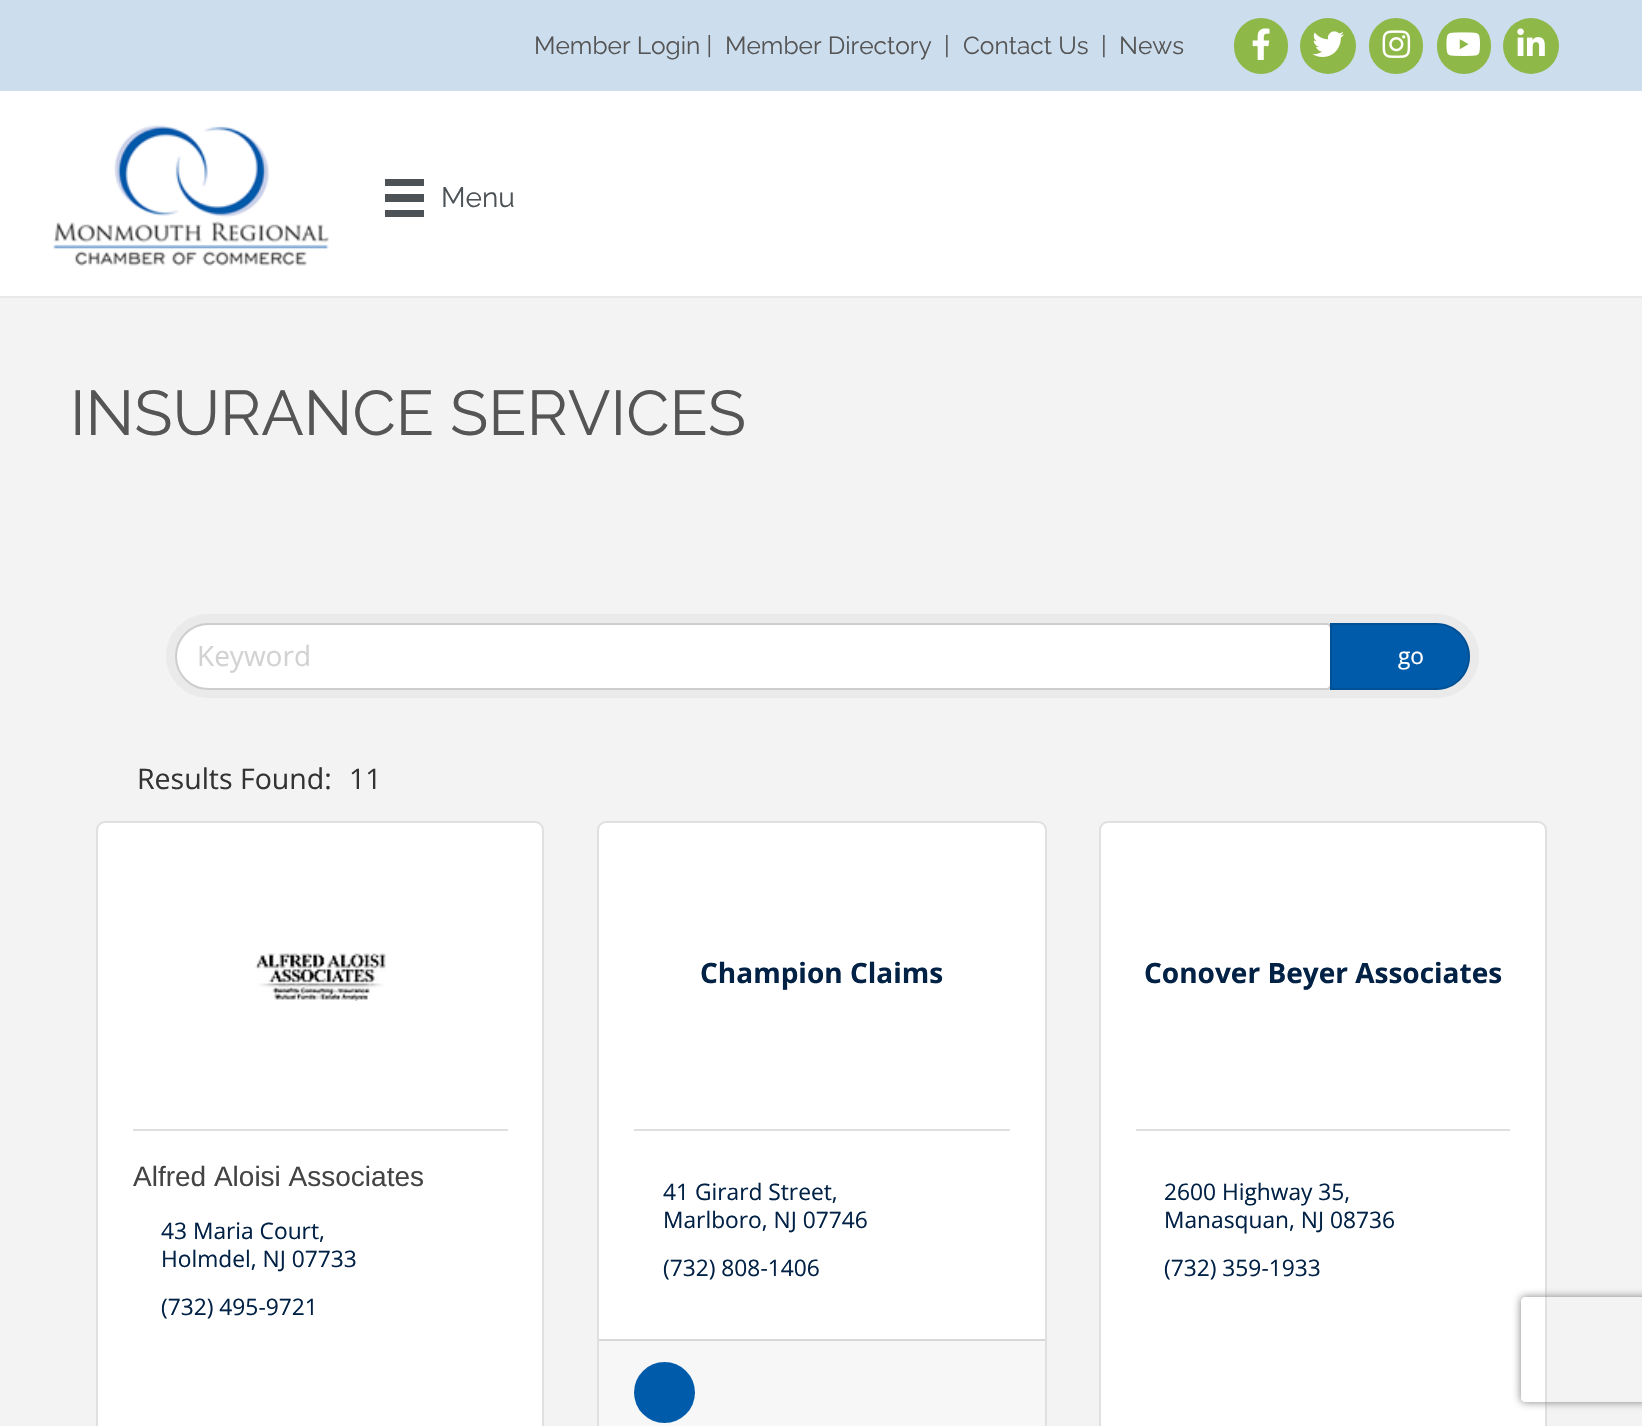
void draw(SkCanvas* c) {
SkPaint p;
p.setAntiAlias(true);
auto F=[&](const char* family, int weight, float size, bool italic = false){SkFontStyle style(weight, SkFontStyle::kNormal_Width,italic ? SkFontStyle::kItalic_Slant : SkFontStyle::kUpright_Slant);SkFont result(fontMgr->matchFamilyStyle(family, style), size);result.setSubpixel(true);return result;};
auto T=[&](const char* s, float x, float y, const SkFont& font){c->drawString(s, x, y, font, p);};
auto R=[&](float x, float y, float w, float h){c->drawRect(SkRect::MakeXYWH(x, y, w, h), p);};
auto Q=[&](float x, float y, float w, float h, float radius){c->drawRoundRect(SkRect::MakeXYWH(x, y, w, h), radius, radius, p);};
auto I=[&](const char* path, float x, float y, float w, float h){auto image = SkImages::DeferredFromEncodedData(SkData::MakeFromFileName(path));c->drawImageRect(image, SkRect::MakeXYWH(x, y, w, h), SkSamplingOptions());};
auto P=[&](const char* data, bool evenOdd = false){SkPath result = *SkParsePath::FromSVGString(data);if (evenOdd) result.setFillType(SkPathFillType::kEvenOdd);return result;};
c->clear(0xffccddee);
auto f1 = F("Raleway",400,24.5);
p.setColor(0xff555555);
T("Member Login |",534,54,f1);
T("Member Directory",725,54,f1);
T("|",944,54,f1);
T("Contact Us",963,54,f1);
T("|",1101,54,f1);
T("News",1119,54,f1);
p.setColor(0xff8eb848);
Q(1234,18,54,56,27);
I("1.png",1252,28,18,32);
c->drawCircle(1328,46,28,p);
I("2.png",1312,31,32,26);
Q(1369,18,54,56,27);
I("3.png",1382,30,29,28);
Q(1437,18,54,56,27);
I("4.png",1446,32,34,24);
c->drawCircle(1531,46,28,p);
I("5.png",1517,28,28,28);
p.setColor(0xffffffff);
R(0,91,1642,205);
p.setColor(0xffe8e8e8);
R(0,296,1642,2);
I("6.png",53,125,277,141);
p.setColor(0xff4c5256);
R(385,179,39,7);
R(385,194,39,8);
R(385,210,39,7);
auto f2 = F("Raleway",400,28);
T("Menu",441,207,f2);
p.setColor(0xfff3f3f3);
R(0,298,1642,1128);
auto f3 = F("Raleway",400,63);
p.setColor(0xff555555);
T("INSURANCE SERVICES",70,435,f3);
p.setColor(0xffeaeaea);
Q(166,614,1313,84,42);
p.setColor(0xffffffff);
c->drawPath(P("M208.5 625h1117.5c2 0 4 2 4 4v55c0 2-2 4-4 4h-1117.5c-17.5 0-31.5-14-31.5-31.5c0-17.5 14-31.5 31.5-31.5z"),p);
p.setStroke(true);
p.setStrokeWidth(2);
p.setColor(0x1f000000);
c->drawPath(P("M208.5 624h1118.5c2 0 4 2 4 4v57c0 2-2 4-4 4h-1118.5c-18 0-32.5-14.5-32.5-32.5c0-18 14.5-32.5 32.5-32.5z"),p);
auto f4 = F("Open Sans",400,28);
p.setStroke(false);
p.setColor(0xffd2d2d2);
T("Keyword",197,666,f4);
p.setColor(0xff005baa);
c->drawPath(P("M1330 623h106.5c18.5 0 33.5 15 33.5 33.5c0 18.5-15 33.5-33.5 33.5h-106.5z"),p);
p.setStroke(true);
p.setColor(0x1f000000);
c->drawPath(P("M1331 624h105.5c18 0 32.5 14.5 32.5 32.5c0 18-14.5 32.5-32.5 32.5h-105.5z"),p);
auto f5 = F("Open Sans",400,22.75);
p.setStroke(false);
p.setColor(0xffffffff);
T("go",1398,664,f5);
auto f6 = F("Open Sans",400,28.5);
p.setColor(0xff333333);
T("Results Found:",137,789,f6);
T("11",349,789,f6);
p.setColor(0xffffffff);
Q(96,821,448,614,9);
p.setStroke(true);
p.setColor(0x1f000000);
c->drawRoundRect(SkRect::MakeXYWH(97,822,446,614),8,8,p);
I("7.png",255,953,132,48);
p.setStroke(false);
p.setColor(0xffdfdfdf);
R(133,1129,375,2);
auto f7 = F("Liberation Sans",400,28);
p.setColor(0xff444444);
T("Alfred Aloisi Associates",133,1186,f7);
p.setColor(0xff012145);
T("43 Maria Court,",161,1239,f5);
T("Holmdel, NJ 07733",161,1267,f5);
T("(732) 495-9721",161,1315,f5);
p.setColor(0xffffffff);
Q(597,821,450,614,9);
p.setStroke(true);
p.setColor(0x1f000000);
c->drawRoundRect(SkRect::MakeXYWH(598,822,448,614),8,8,p);
auto f8 = F("Open Sans",700,28);
p.setStroke(false);
p.setColor(0xff012145);
T("Champion Claims",700,983,f8);
p.setColor(0xffdfdfdf);
R(634,1129,376,2);
p.setColor(0xff012145);
T("41 Girard Street,",663,1200,f5);
T("Marlboro, NJ 07746",663,1228,f5);
T("(732) 808-1406",663,1276,f5);
p.setColor(0xfff7f7f7);
R(599,1341,446,85);
p.setColor(0xffd8d8d8);
R(599,1339,446,2);
p.setColor(0xff005baa);
c->drawCircle(664.5,1392.5,30.5,p);
p.setColor(0xffffffff);
Q(1099,821,448,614,9);
p.setStroke(true);
p.setColor(0x1f000000);
c->drawRoundRect(SkRect::MakeXYWH(1100,822,446,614),8,8,p);
p.setStroke(false);
p.setColor(0xff012145);
T("Conover Beyer Associates",1144,983,f8);
p.setColor(0xffdfdfdf);
R(1136,1129,374,2);
p.setColor(0xff012145);
T("2600 Highway 35,",1164,1200,f5);
T("Manasquan, NJ 08736",1164,1228,f5);
T("(732) 359-1933",1164,1276,f5);
c->save();
c->clipPath(P("M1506 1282h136v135h-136zm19 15h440c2 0 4 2 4 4v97c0 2-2 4-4 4h-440c-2 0-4-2-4-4v-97c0-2 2-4 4-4z",true),true);
p.setColor(0xff808080);
p.setMaskFilter(SkMaskFilter::MakeBlur(kNormal_SkBlurStyle, 4.5));
c->drawRoundRect(SkRect::MakeXYWH(1521,1297,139,105),4,4,p);
p.setMaskFilter(nullptr);
c->restore();
}
